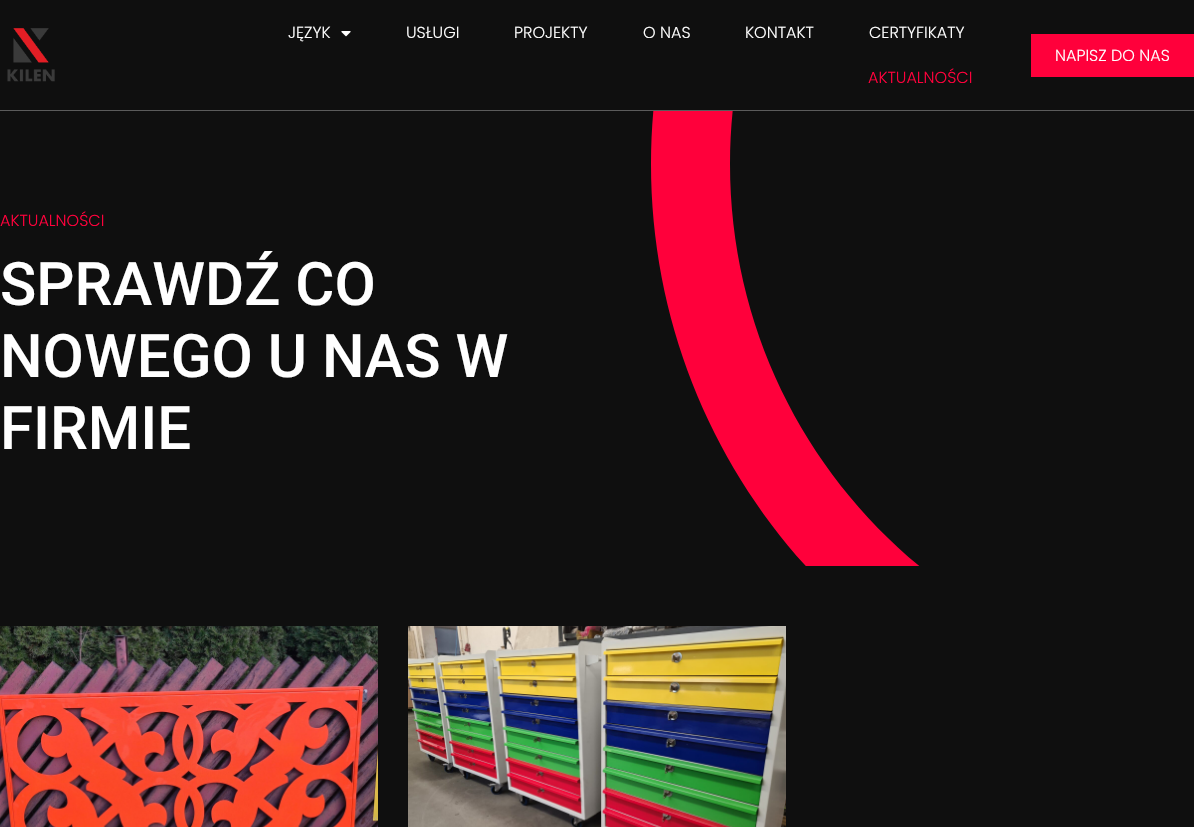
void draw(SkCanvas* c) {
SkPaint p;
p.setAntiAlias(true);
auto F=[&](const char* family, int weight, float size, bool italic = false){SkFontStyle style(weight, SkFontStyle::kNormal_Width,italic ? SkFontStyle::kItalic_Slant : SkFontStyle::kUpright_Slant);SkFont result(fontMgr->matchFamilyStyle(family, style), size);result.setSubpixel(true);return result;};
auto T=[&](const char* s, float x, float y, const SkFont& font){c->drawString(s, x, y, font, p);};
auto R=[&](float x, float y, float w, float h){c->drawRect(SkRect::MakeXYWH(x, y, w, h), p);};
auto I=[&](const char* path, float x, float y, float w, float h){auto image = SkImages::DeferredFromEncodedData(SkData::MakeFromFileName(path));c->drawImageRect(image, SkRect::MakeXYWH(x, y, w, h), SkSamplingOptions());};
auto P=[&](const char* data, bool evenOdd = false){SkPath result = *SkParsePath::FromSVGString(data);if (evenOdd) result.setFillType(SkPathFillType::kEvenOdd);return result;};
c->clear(0xff0f0f0f);
p.setColor(0xff5b5b5b);
R(0,110,1194,1);
I("1.png",7,28,48,54);
auto f1 = F("Poppins",300,16);
p.setColor(0xffffffff);
T("JĘZYK",288,38,f1);
I("2.png",341,31,10,6);
T("USŁUGI",406,38,f1);
T("PROJEKTY",514,38,f1);
T("O NAS",643,38,f1);
T("KONTAKT",745,38,f1);
T("CERTYFIKATY",869,38,f1);
p.setColor(0xffff003b);
T("AKTUALNOŚCI",868,83,f1);
R(1031,34,163,43);
p.setColor(0xffffffff);
T("NAPISZ DO NAS",1055,61,f1);
p.setColor(0xffff003b);
T("AKTUALNOŚCI",0,226,f1);
auto f2 = F("Roboto",500,60);
p.setColor(0xffffffff);
T("SPRAWDŹ CO",0,305,f2);
T("NOWEGO U NAS W",0,377,f2);
T("FIRMIE",0,449,f2);
c->save();
c->clipRect(SkRect::MakeXYWH(651,111,543,455));
p.setColor(0xffff003b);
c->drawPath(P("M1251-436c-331 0-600 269-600 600c0 331 269 600 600 600c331 0 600-269 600-600c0-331-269-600-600-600zm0 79c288 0 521 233 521 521c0 288-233 521-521 521c-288 0-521-233-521-521c0-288 233-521 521-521z"),p);
c->restore();
I("3.png",0,626,378,201);
I("4.png",408,626,378,201);
}
